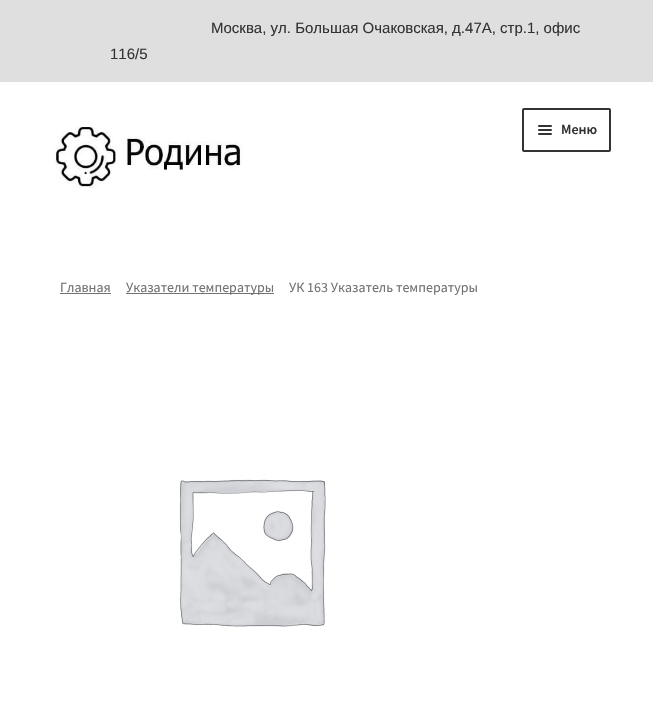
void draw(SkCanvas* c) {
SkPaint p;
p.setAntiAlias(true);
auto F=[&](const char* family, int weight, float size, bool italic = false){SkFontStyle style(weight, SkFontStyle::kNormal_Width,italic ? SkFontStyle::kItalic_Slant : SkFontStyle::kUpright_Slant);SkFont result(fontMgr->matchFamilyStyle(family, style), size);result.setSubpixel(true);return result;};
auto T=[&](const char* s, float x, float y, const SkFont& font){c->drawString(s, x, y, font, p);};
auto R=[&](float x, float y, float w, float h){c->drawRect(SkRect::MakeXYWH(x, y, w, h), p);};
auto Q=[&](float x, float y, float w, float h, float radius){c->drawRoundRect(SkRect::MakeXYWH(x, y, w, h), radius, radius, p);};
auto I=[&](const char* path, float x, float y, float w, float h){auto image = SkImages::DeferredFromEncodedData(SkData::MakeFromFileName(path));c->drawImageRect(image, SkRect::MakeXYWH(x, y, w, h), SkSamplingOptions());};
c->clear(0xffffffff);
p.setColor(0xffdfdfdf);
R(0,0,653,82);
auto f1 = F("Liberation Sans",400,15);
p.setColor(0xff333333);
T("Москва, ул. Большая Очаковская, д.47А, стр.1, офис",211,33,f1);
T("116/5",110,59,f1);
I("1.png",54,127,189,61);
p.setStroke(true);
p.setStrokeWidth(2);
c->drawRoundRect(SkRect::MakeXYWH(523,109,87,42),1,1,p);
p.setStroke(false);
Q(538,125,14,2,1);
Q(538,129,14,2,1);
auto f2 = F("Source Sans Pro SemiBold",600,14);
T("Меню",561,134,f2);
Q(538,133,14,2,1);
auto f3 = F("Source Sans Pro",400,14);
p.setColor(0xff727272);
T("Главная",60,292,f3);
R(60,293,51,1);
R(126,293,148,1);
T("Указатели температуры",126,292,f3);
T("УК 163 Указатель температуры",289,292,f3);
I("2.png",179,479,147,148);
}
